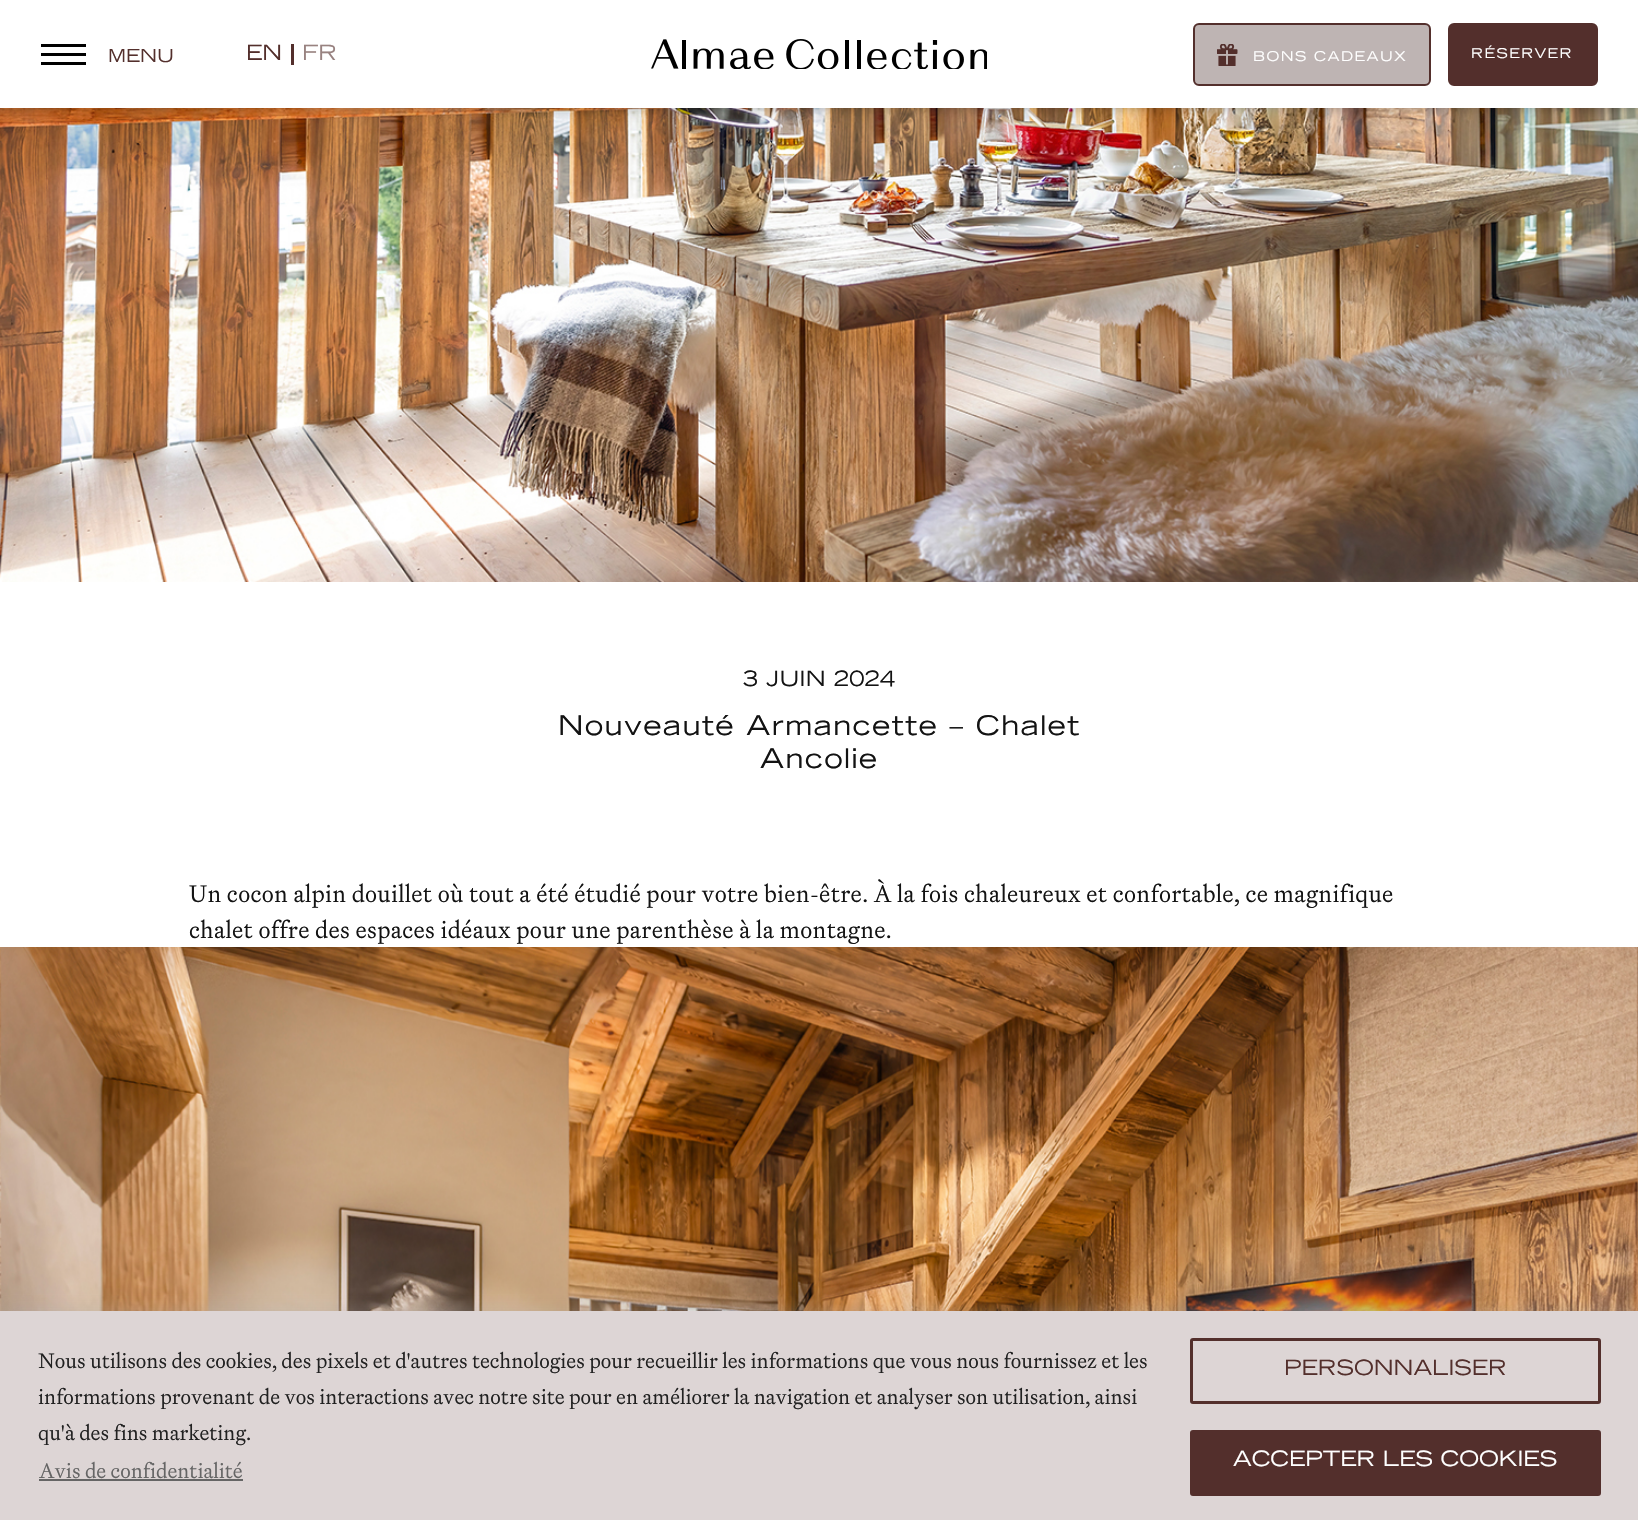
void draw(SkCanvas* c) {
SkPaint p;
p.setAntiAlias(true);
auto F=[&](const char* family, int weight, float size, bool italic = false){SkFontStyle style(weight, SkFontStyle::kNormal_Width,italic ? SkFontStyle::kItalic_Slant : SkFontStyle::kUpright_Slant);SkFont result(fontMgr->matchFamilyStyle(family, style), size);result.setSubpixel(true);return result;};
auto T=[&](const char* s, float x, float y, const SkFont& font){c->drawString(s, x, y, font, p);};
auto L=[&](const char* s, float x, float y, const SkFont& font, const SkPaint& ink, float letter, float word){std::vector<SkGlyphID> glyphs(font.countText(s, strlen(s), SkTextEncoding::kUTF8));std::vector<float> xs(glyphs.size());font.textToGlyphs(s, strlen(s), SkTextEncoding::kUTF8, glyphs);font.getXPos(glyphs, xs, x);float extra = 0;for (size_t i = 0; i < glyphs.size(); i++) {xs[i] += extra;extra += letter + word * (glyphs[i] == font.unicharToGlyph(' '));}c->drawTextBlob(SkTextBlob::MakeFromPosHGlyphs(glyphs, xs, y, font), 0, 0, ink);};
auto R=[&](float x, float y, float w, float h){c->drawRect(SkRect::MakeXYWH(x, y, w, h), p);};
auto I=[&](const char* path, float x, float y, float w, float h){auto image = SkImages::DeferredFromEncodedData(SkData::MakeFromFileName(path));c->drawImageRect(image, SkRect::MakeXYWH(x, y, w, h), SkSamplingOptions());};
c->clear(0xffffffff);
I("3.png",0,108,1638,474);
p.setColor(0xb3000000);
p.setMaskFilter(SkMaskFilter::MakeBlur(kNormal_SkBlurStyle, 9));
c->drawRect(SkRect::MakeXYWH(-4,-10,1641,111),p);
p.setMaskFilter(nullptr);
p.setColor(0xffffffff);
R(0,0,1638,108);
p.setColor(0xff000000);
R(41,44,45,3);
R(41,53,45,3);
R(41,62,45,3);
auto f1 = F("Trade Gothic",400,18);
p.setColor(0xff532f2c);
T("MENU",108,62,f1);
auto f2 = F("Trade Gothic",400,21);
T("EN",246,60,f2);
R(291,44,3,21);
p.setColor(0xff988280);
T("FR",302,60,f2);
I("1.png",651,39,336,30);
p.setColor(0xffbeb4b3);
c->drawRoundRect(SkRect::MakeXYWH(1194,24,236,61),5,5,p);
p.setStroke(true);
p.setStrokeWidth(2);
p.setColor(0xff532f2c);
c->drawRoundRect(SkRect::MakeXYWH(1194,24,236,61),5,5,p);
I("2.png",1217,44,21,22);
auto f3 = F("Trade Gothic",400,13.5);
p.setStroke(false);
p.setColor(0xffffffff);
L("BONS CADEAUX",1253,61,f3,p,1.5,0);
p.setColor(0xff532f2c);
c->drawRoundRect(SkRect::MakeXYWH(1449,24,148,61),5,5,p);
p.setStroke(true);
c->drawRoundRect(SkRect::MakeXYWH(1449,24,148,61),5,5,p);
p.setStroke(false);
p.setColor(0xffffffff);
L("RÉSERVER",1471,58,f3,p,1.5,0);
p.setColor(0xff131313);
L("3 JUIN 2024",743,686,f2,p,.3,0);
auto f4 = F("Trade Gothic",400,27);
L("Nouveauté Armancette – Chalet",558,735,f4,p,1.5,0);
L("Ancolie",760,768,f4,p,1.5,0);
auto f5 = F("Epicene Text",300,24);
L("Un cocon alpin douillet où tout a été étudié pour votre bien-être. À la fois chaleureux et confortable, ce magnifique",189,902,f5,p,.3,0);
L("chalet offre des espaces idéaux pour une parenthèse à la montagne.",189,938,f5,p,.3,0);
I("4.png",0,947,1638,364);
p.setColor(0x4dacabab);
p.setMaskFilter(SkMaskFilter::MakeBlur(kNormal_SkBlurStyle, 7.5));
c->drawRect(SkRect::MakeXYWH(0,1310,1638,210),p);
p.setMaskFilter(nullptr);
p.setColor(0xffddd5d5);
R(0,1311,1638,209);
auto f6 = F("Epicene Text",300,21);
p.setColor(0xff212121);
T("Nous utilisons des cookies, des pixels et d'autres technologies pour recueillir les informations que vous nous fournissez et les",38,1368,f6);
T("informations provenant de vos interactions avec notre site pour en améliorer la navigation et analyser son utilisation, ainsi",38,1404,f6);
T("qu'à des fins marketing.",38,1440,f6);
p.setColor(0xff656565);
T("Avis de confidentialité",39,1478,f6);
R(39,1479,204,2);
p.setStroke(true);
p.setStrokeWidth(3);
p.setColor(0xff532f2c);
c->drawRoundRect(SkRect::MakeXYWH(1191.5,1339.5,408,63),1.5,1.5,p);
p.setStroke(false);
T("PERSONNALISER",1284,1375,f2);
c->drawRoundRect(SkRect::MakeXYWH(1191.5,1431.5,408,63),1.5,1.5,p);
p.setStroke(true);
c->drawRoundRect(SkRect::MakeXYWH(1191.5,1431.5,408,63),1.5,1.5,p);
p.setStroke(false);
p.setColor(0xffffffff);
T("ACCEPTER LES COOKIES",1233,1466,f2);
}
